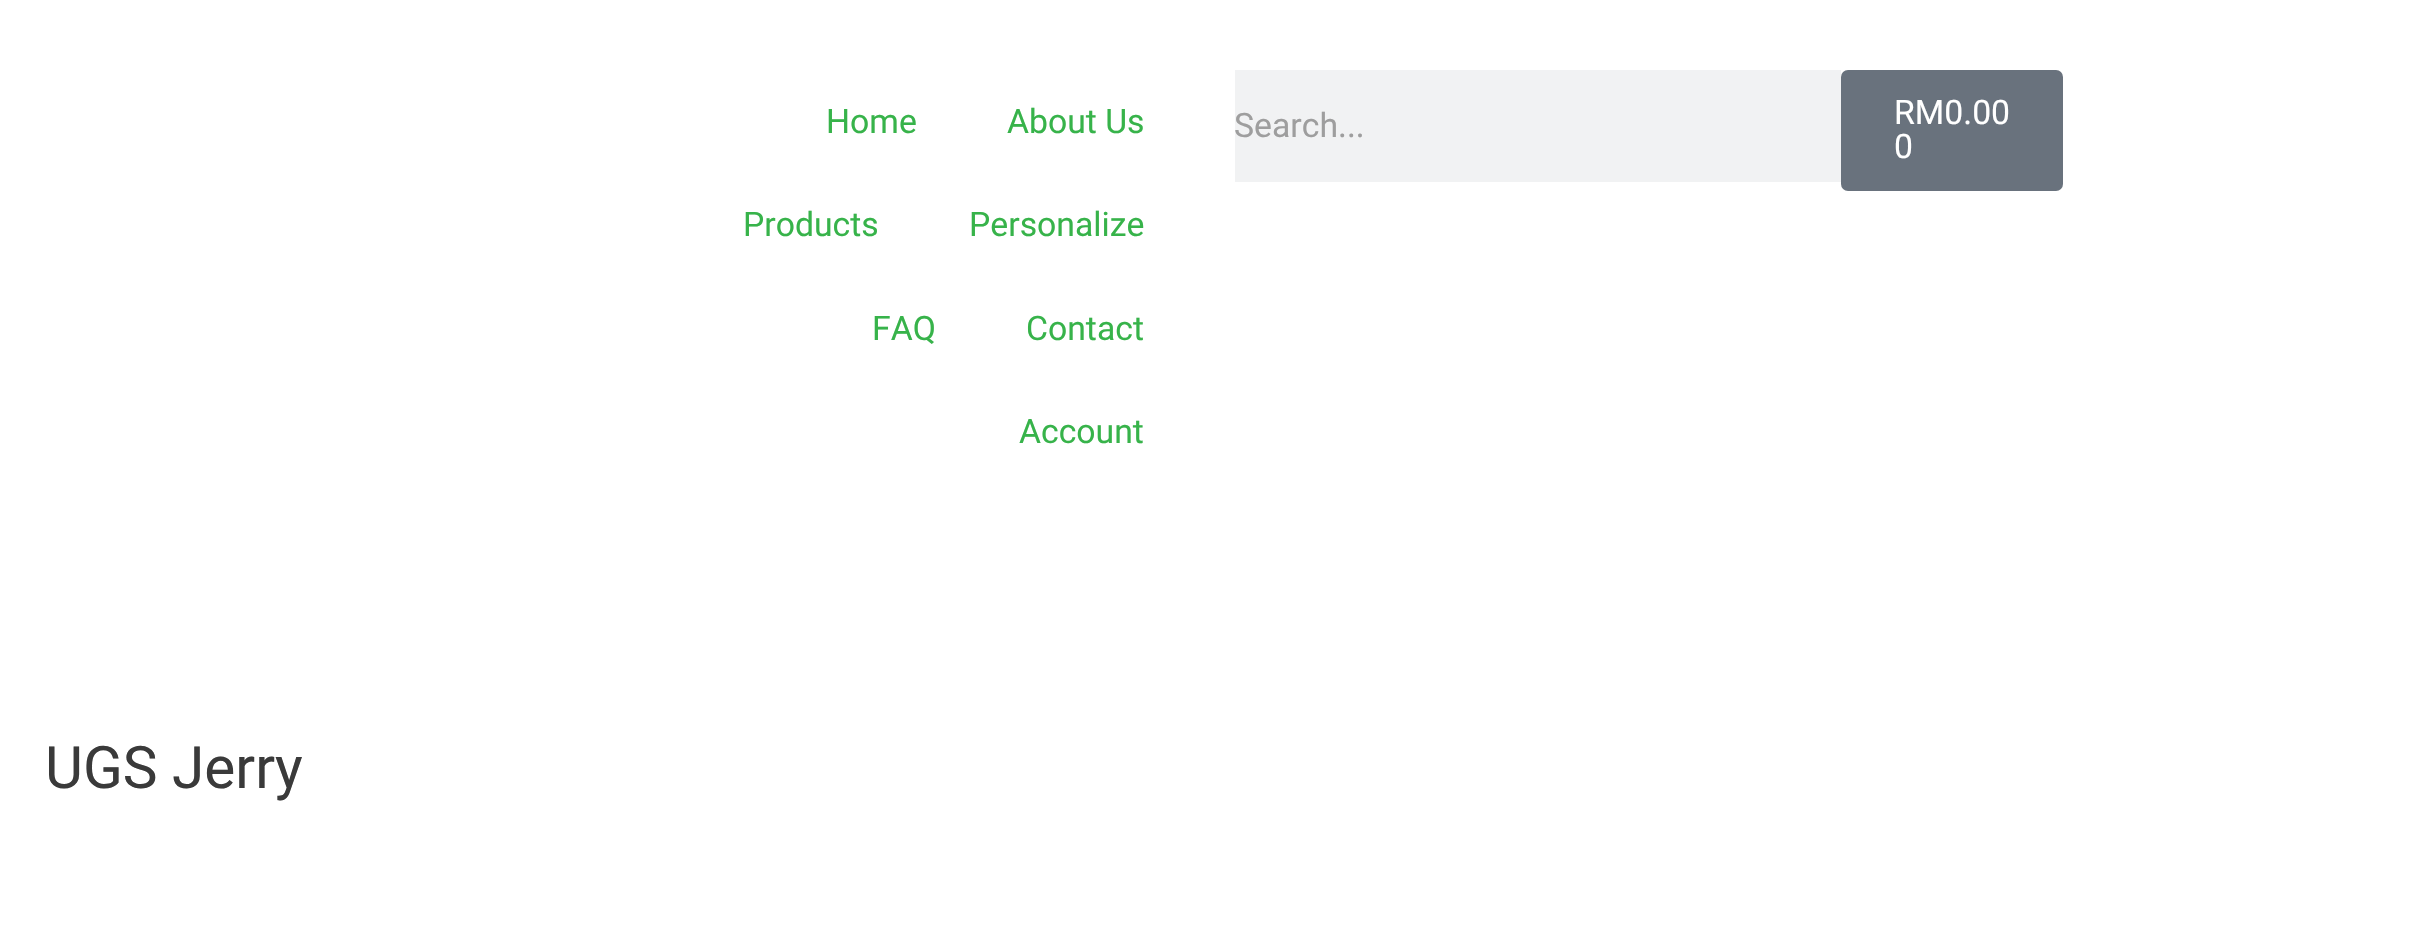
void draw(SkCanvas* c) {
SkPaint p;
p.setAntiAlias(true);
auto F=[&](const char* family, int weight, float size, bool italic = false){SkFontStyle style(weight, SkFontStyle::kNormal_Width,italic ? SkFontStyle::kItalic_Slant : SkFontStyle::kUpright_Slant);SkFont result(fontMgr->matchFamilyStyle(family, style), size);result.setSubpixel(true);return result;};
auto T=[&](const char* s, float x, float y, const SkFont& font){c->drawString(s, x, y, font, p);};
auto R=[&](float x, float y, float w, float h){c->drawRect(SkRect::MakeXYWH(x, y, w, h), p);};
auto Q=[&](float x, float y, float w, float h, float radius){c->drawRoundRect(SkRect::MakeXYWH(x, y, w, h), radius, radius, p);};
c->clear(0xffffffff);
auto f1 = F("Roboto",400,33.75);
p.setColor(0xff37b34a);
T("Home",826,133,f1);
T("About Us",1007,133,f1);
T("Products",743,236,f1);
T("Personalize",969,236,f1);
T("FAQ",872,340,f1);
T("Contact",1026,340,f1);
T("Account",1019,443,f1);
p.setColor(0xfff1f2f3);
R(1235,70,606,112);
p.setColor(0xff9e9e9e);
T("Search...",1234,137,f1);
p.setColor(0xff69727d);
Q(1841,70,222,121,7);
p.setColor(0xffffffff);
T("RM0.00",1894,124,f1);
T("0",1894,158,f1);
auto f2 = F("Roboto",400,58.5);
p.setColor(0xff3a3a3a);
T("UGS Jerry",45,788,f2);
}
